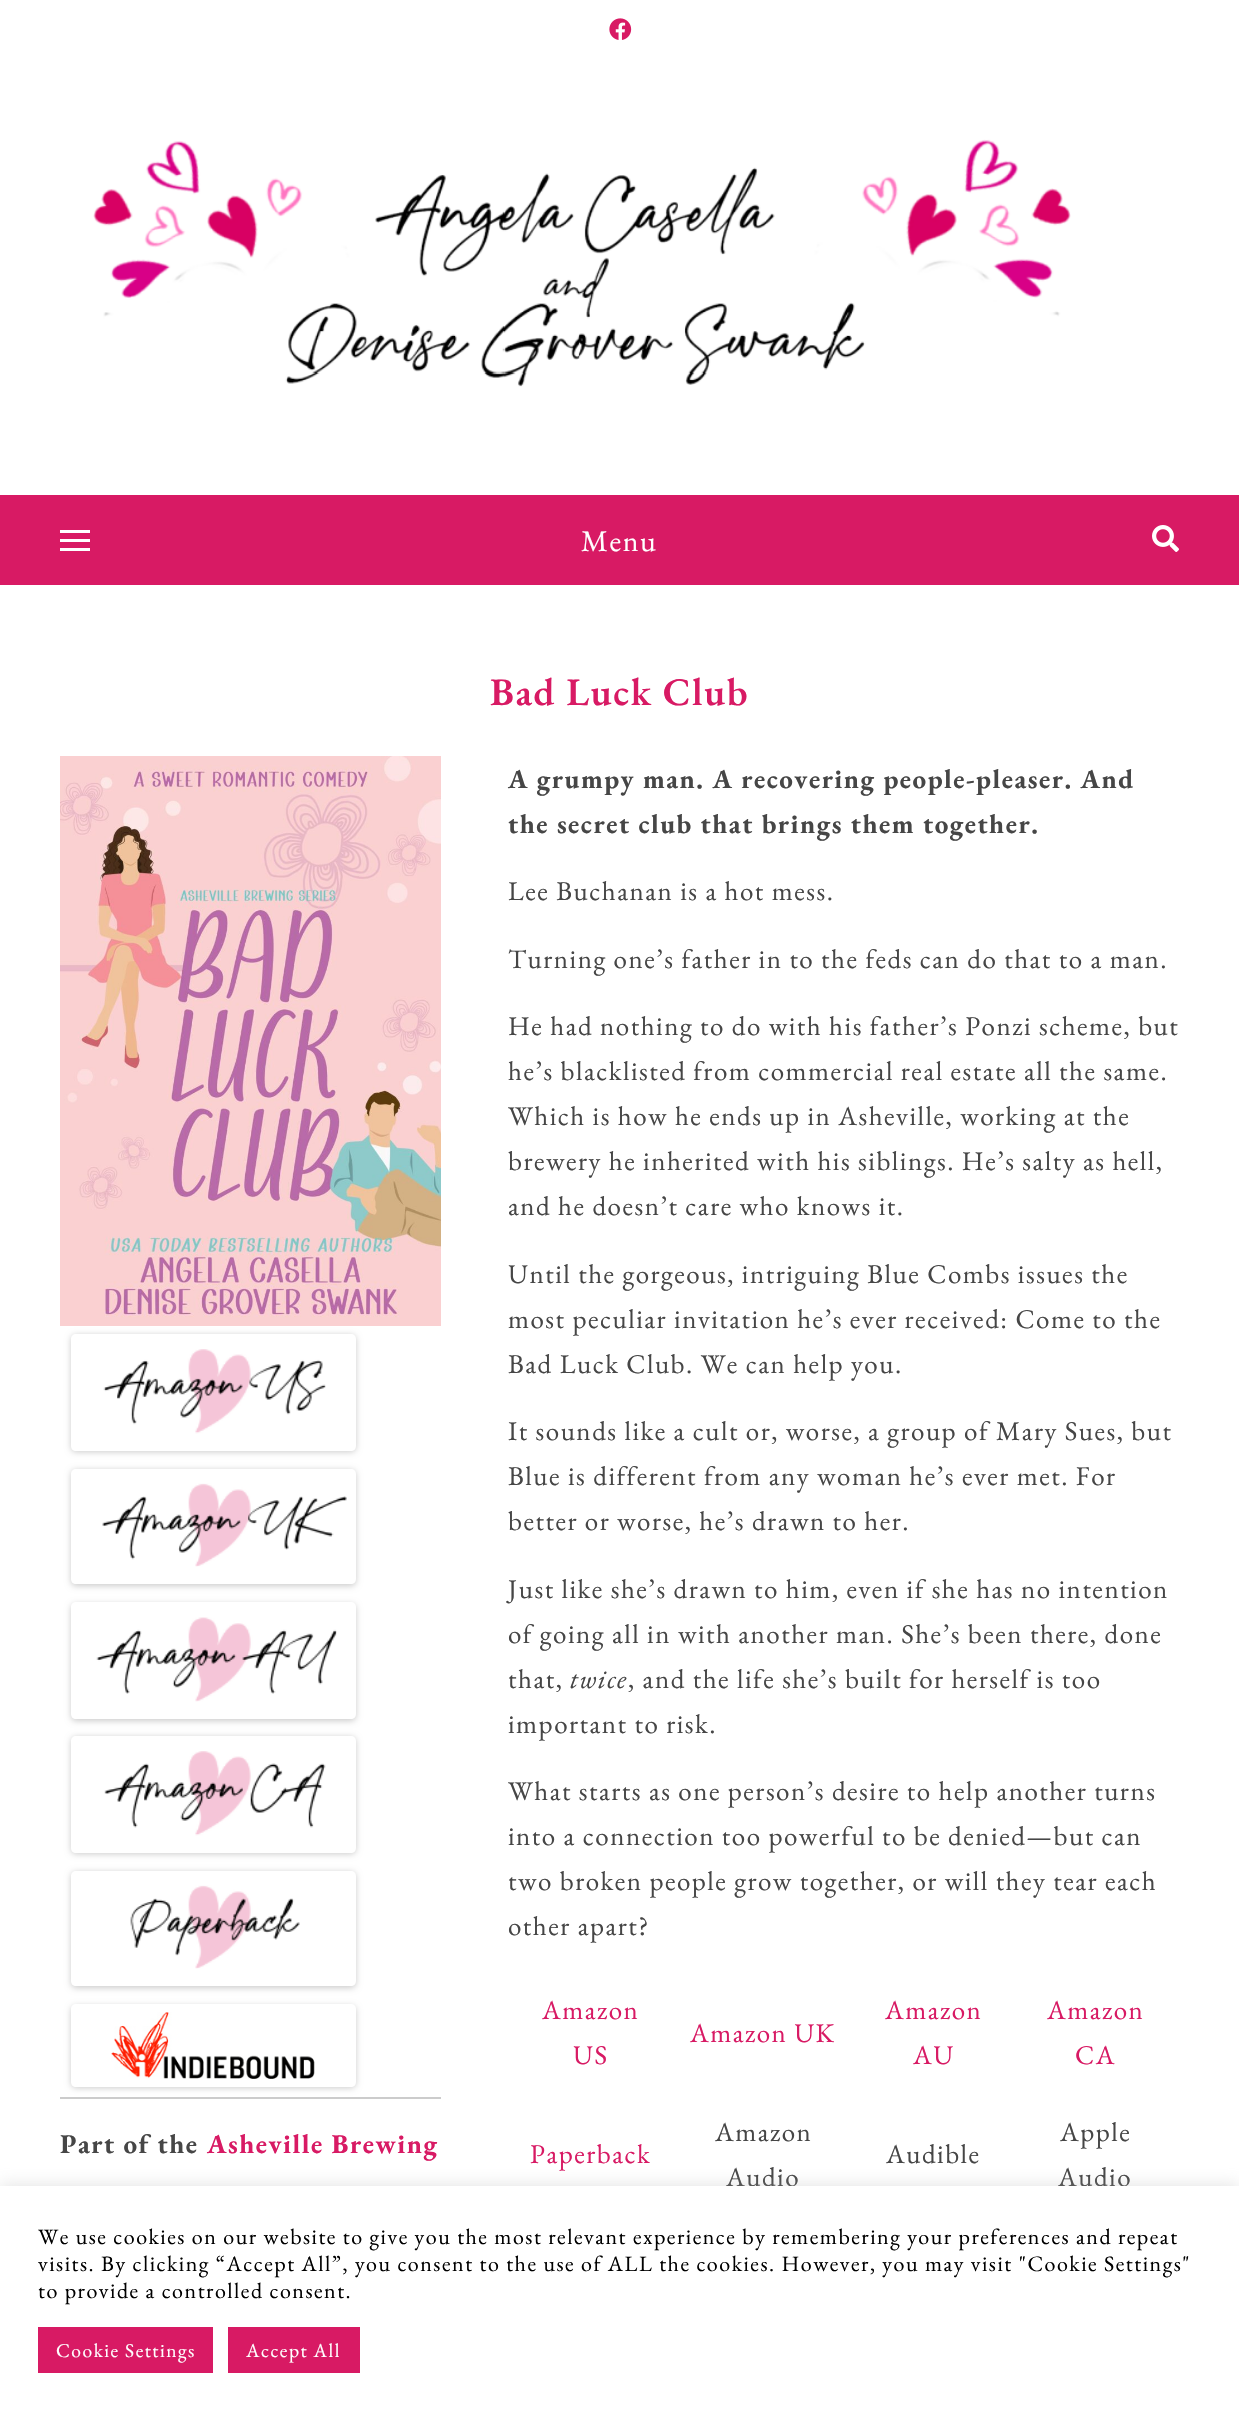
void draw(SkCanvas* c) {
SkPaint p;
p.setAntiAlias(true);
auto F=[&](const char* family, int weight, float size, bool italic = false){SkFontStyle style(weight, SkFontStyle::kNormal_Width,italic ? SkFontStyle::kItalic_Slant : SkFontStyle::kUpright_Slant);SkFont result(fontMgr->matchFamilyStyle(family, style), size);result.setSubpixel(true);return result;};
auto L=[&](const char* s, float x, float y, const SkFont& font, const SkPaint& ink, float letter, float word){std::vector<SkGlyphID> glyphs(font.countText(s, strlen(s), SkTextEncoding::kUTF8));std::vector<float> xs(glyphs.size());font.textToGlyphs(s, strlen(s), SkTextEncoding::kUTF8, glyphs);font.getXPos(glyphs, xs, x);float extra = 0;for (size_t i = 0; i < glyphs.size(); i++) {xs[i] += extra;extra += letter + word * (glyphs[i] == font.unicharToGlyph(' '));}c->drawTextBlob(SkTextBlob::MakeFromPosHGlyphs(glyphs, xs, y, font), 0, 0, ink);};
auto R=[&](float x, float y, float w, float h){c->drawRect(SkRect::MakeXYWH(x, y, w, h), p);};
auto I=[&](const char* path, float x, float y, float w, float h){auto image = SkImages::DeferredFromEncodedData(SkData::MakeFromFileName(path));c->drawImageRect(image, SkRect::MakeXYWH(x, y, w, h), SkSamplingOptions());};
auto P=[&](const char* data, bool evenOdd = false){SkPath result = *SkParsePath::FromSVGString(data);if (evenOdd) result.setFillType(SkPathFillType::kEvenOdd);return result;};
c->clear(0xffffffff);
I("1.png",609,18,23,22);
I("2.png",93,139,978,248);
p.setColor(0xffd81a64);
R(0,495,1239,90);
p.setColor(0xffffffff);
R(60,530,30,3);
R(60,539,30,3);
R(60,548,30,3);
auto f1 = F("EB Garamond",400,30);
L("Menu",581,551,f1,p,1.5,0);
I("3.png",1152,525,27,27);
auto f2 = F("EB Garamond",600,39);
p.setColor(0xffd81a64);
L("Bad Luck Club",490,705,f2,p,1.5,0);
c->save();
c->clipPath(P("M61 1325h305v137h-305zm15 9h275c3 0 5 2 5 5v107c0 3-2 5-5 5h-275c-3 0-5-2-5-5v-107c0-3 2-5 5-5z",true),true);
p.setColor(0x33000000);
p.setMaskFilter(SkMaskFilter::MakeBlur(kNormal_SkBlurStyle, 3));
c->drawRoundRect(SkRect::MakeXYWH(71,1335,285,117),5,5,p);
p.setMaskFilter(nullptr);
c->restore();
I("4.png",60,756,381,570);
I("5.png",103,1349,223,85);
c->save();
c->clipPath(P("M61 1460h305v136h-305zm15 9h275c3 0 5 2 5 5v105c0 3-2 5-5 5h-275c-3 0-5-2-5-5v-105c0-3 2-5 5-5z",true),true);
p.setMaskFilter(SkMaskFilter::MakeBlur(kNormal_SkBlurStyle, 3));
c->drawRoundRect(SkRect::MakeXYWH(71,1470,285,116),5,5,p);
p.setMaskFilter(nullptr);
c->restore();
I("6.png",102,1483,245,84);
c->save();
c->clipPath(P("M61 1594h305v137h-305zm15 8h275c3 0 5 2 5 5v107c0 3-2 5-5 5h-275c-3 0-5-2-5-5v-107c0-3 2-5 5-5z",true),true);
p.setMaskFilter(SkMaskFilter::MakeBlur(kNormal_SkBlurStyle, 3));
c->drawRoundRect(SkRect::MakeXYWH(71,1604,285,117),5,5,p);
p.setMaskFilter(nullptr);
c->restore();
I("7.png",96,1617,241,85);
c->save();
c->clipPath(P("M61 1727h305v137h-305zm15 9h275c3 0 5 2 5 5v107c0 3-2 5-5 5h-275c-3 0-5-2-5-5v-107c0-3 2-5 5-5z",true),true);
p.setMaskFilter(SkMaskFilter::MakeBlur(kNormal_SkBlurStyle, 3));
c->drawRoundRect(SkRect::MakeXYWH(71,1737,285,117),5,5,p);
p.setMaskFilter(nullptr);
c->restore();
I("8.png",104,1751,222,85);
c->save();
c->clipPath(P("M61 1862h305v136h-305zm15 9h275c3 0 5 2 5 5v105c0 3-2 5-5 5h-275c-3 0-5-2-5-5v-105c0-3 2-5 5-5z",true),true);
p.setMaskFilter(SkMaskFilter::MakeBlur(kNormal_SkBlurStyle, 3));
c->drawRoundRect(SkRect::MakeXYWH(71,1872,285,116),5,5,p);
p.setMaskFilter(nullptr);
c->restore();
I("9.png",130,1885,170,84);
p.setColor(0xffcccccc);
R(60,2097,381,2);
c->save();
c->clipPath(P("M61 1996h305v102h-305zm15 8h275c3 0 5 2 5 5v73c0 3-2 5-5 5h-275c-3 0-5-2-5-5v-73c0-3 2-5 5-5z",true),true);
p.setColor(0x33000000);
p.setMaskFilter(SkMaskFilter::MakeBlur(kNormal_SkBlurStyle, 3));
c->drawRoundRect(SkRect::MakeXYWH(71,2006,285,82),5,5,p);
p.setMaskFilter(nullptr);
c->restore();
I("10.png",111,2012,204,67);
auto f3 = F("EB Garamond",700,27);
p.setColor(0xff464646);
L("Part of the",60,2153,f3,p,1.5,0);
p.setColor(0xffd81a64);
L("Asheville Brewing",207,2153,f3,p,1.5,0);
p.setColor(0xff464646);
L("A grumpy man. A recovering people-pleaser. And",508,788,f3,p,1.5,0);
L("the secret club that brings them together.",508,833,f3,p,1.5,0);
auto f4 = F("EB Garamond",400,27);
L("Lee Buchanan is a hot mess.",508,900,f4,p,1.5,0);
L("Turning one’s father in to the feds can do that to a man.",508,968,f4,p,1.5,0);
L("He had nothing to do with his father’s Ponzi scheme, but",508,1035,f4,p,1.5,0);
L("he’s blacklisted from commercial real estate all the same.",508,1080,f4,p,1.5,0);
L("Which is how he ends up in Asheville, working at the",508,1125,f4,p,1.5,0);
L("brewery he inherited with his siblings. He’s salty as hell,",508,1170,f4,p,1.5,0);
L("and he doesn’t care who knows it.",508,1215,f4,p,1.5,0);
L("Until the gorgeous, intriguing Blue Combs issues the",508,1283,f4,p,1.5,0);
L("most peculiar invitation he’s ever received: Come to the",508,1328,f4,p,1.5,0);
L("Bad Luck Club. We can help you.",508,1373,f4,p,1.5,0);
L("It sounds like a cult or, worse, a group of Mary Sues, but",508,1440,f4,p,1.5,0);
L("Blue is different from any woman he’s ever met. For",508,1485,f4,p,1.5,0);
L("better or worse, he’s drawn to her.",508,1530,f4,p,1.5,0);
L("Just like she’s drawn to him, even if she has no intention",508,1598,f4,p,1.5,0);
L("of going all in with another man. She’s been there, done",508,1643,f4,p,1.5,0);
L("that,",508,1688,f4,p,1.5,0);
auto f5 = F("EB Garamond",400,27,true);
L("twice",570,1688,f5,p,1.5,0);
L(", and the life she’s built for herself is too",628,1688,f4,p,1.5,0);
L("important to risk.",508,1733,f4,p,1.5,0);
L("What starts as one person’s desire to help another turns",508,1800,f4,p,1.5,0);
L("into a connection too powerful to be denied—but can",508,1845,f4,p,1.5,0);
L("two broken people grow together, or will they tear each",508,1890,f4,p,1.5,0);
L("other apart?",508,1935,f4,p,1.5,0);
p.setColor(0xffd81a64);
L("Amazon",542,2019,f4,p,1.5,0);
L("US",573,2064,f4,p,1.5,0);
L("Amazon UK",690,2042,f4,p,1.5,0);
L("Amazon",885,2019,f4,p,1.5,0);
L("AU",913,2064,f4,p,1.5,0);
L("Amazon",1047,2019,f4,p,1.5,0);
L("CA",1075,2064,f4,p,1.5,0);
L("Paperback",530,2163,f4,p,1.5,0);
p.setColor(0xff464646);
L("Amazon",715,2141,f4,p,1.5,0);
L("Audio",726,2186,f4,p,1.5,0);
L("Audible",886,2163,f4,p,1.5,0);
L("Apple",1060,2141,f4,p,1.5,0);
L("Audio",1058,2186,f4,p,1.5,0);
p.setColor(0x4dacabab);
p.setMaskFilter(SkMaskFilter::MakeBlur(kNormal_SkBlurStyle, 7.5));
c->drawRect(SkRect::MakeXYWH(0,2184,1239,233),p);
p.setMaskFilter(nullptr);
p.setColor(0xffffffff);
R(0,2186,1239,231);
auto f6 = F("EB Garamond",400,22);
p.setColor(0xff000000);
L("We use cookies on our website to give you the most relevant experience by remembering your preferences and repeat",38,2244,f6,p,1.5,0);
L("visits. By clicking “Accept All”, you consent to the use of ALL the cookies. However, you may visit \"Cookie Settings\"",38,2271,f6,p,1.5,0);
L("to provide a controlled consent.",38,2298,f6,p,1.5,0);
p.setColor(0xffd81a64);
R(38,2327,175,46);
auto f7 = F("EB Garamond",400,19.5);
p.setColor(0xffffffff);
L("Cookie Settings",56,2357,f7,p,1.5,0);
p.setColor(0xffd81a64);
R(228,2327,132,46);
p.setColor(0xffffffff);
L("Accept All",246,2357,f7,p,1.5,0);
}
